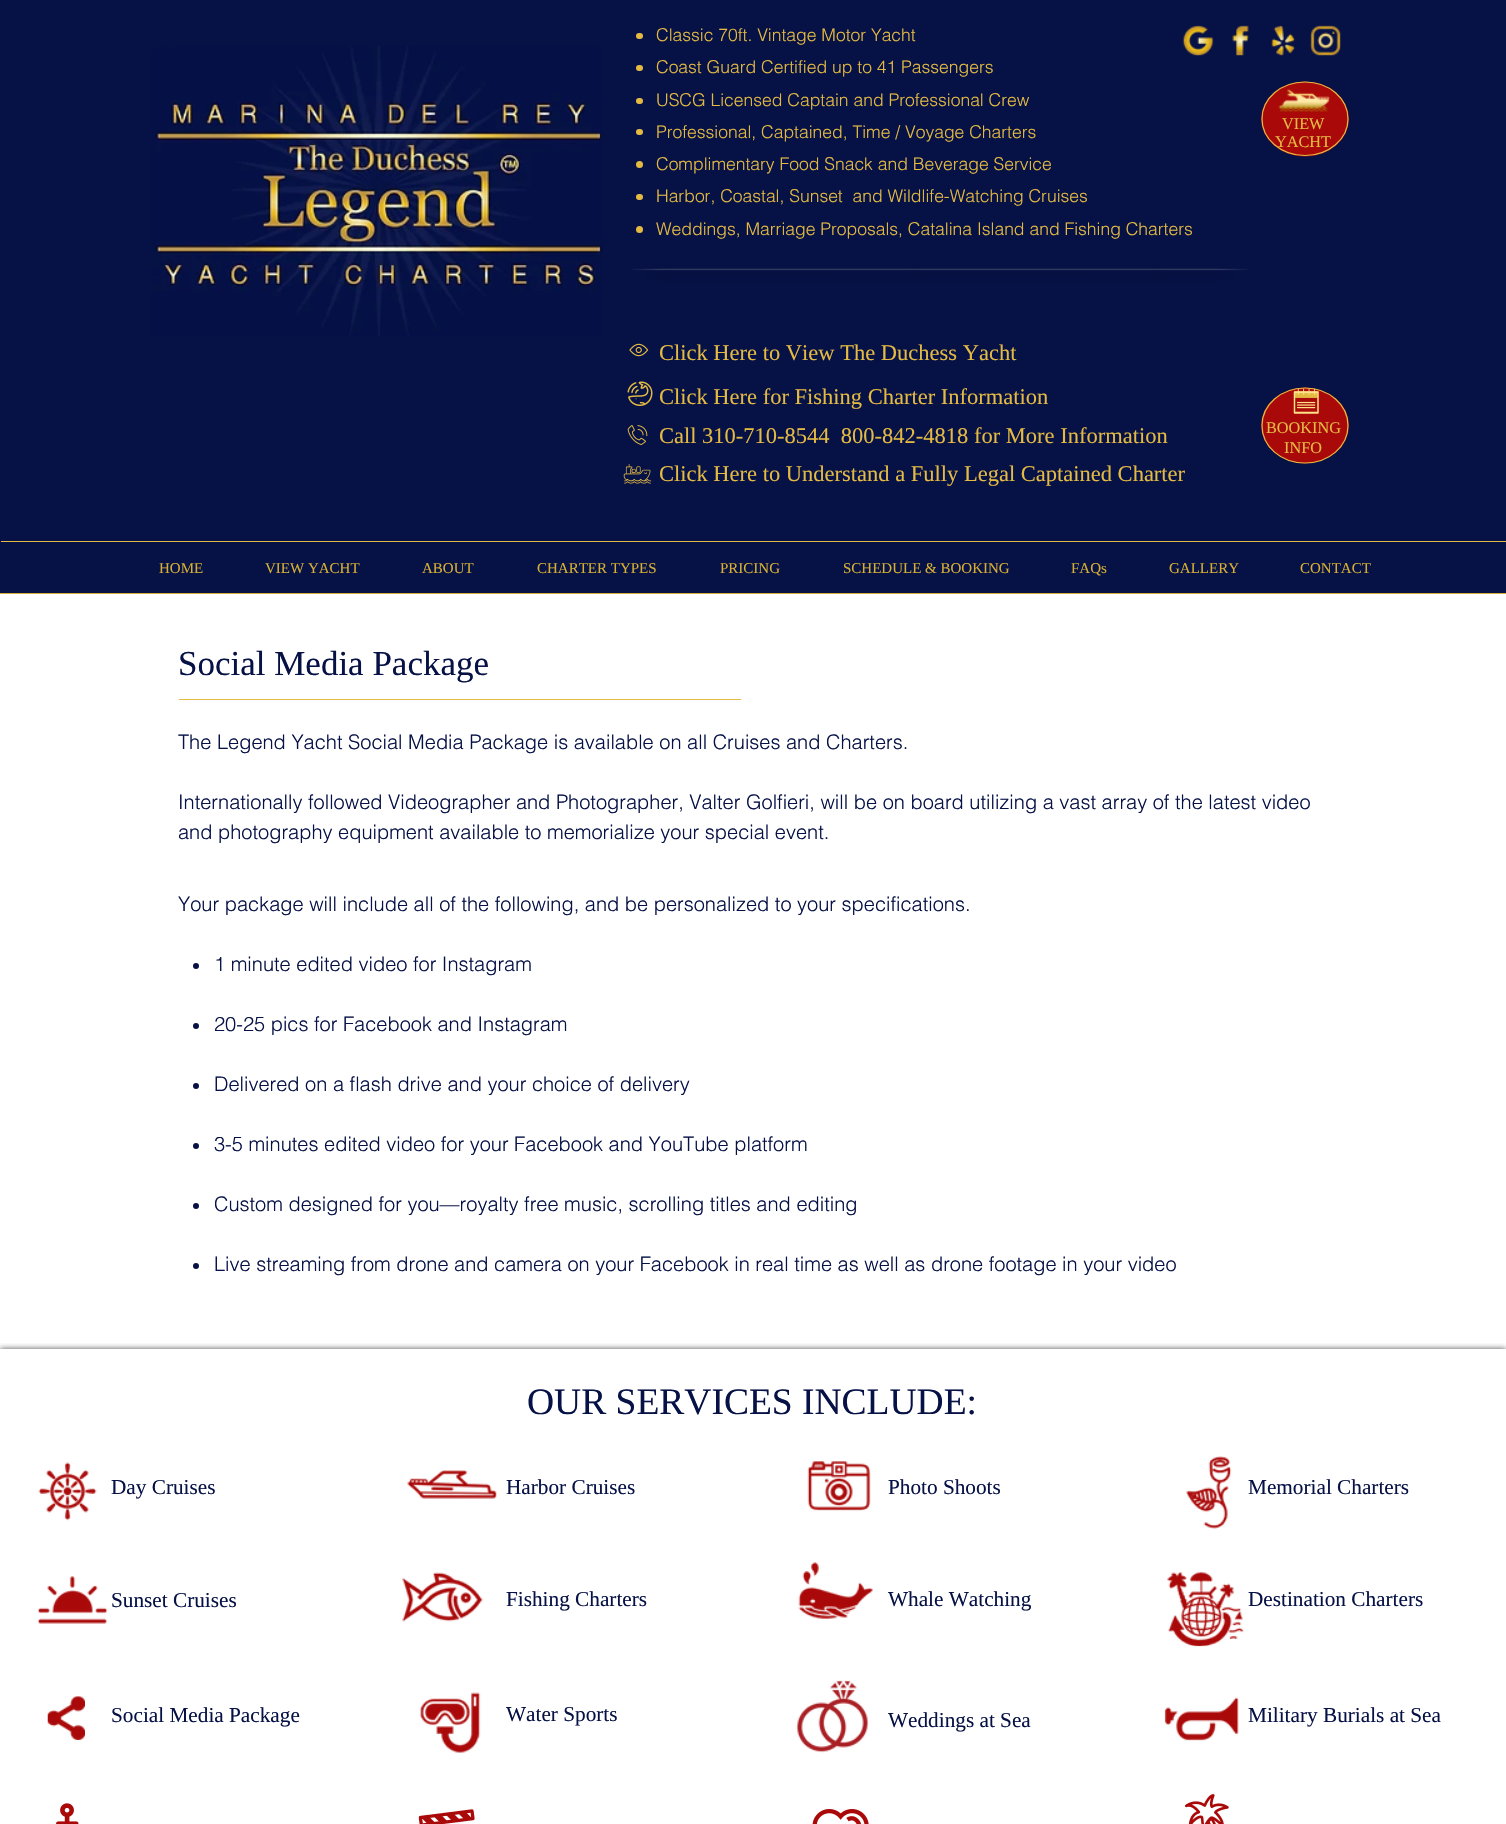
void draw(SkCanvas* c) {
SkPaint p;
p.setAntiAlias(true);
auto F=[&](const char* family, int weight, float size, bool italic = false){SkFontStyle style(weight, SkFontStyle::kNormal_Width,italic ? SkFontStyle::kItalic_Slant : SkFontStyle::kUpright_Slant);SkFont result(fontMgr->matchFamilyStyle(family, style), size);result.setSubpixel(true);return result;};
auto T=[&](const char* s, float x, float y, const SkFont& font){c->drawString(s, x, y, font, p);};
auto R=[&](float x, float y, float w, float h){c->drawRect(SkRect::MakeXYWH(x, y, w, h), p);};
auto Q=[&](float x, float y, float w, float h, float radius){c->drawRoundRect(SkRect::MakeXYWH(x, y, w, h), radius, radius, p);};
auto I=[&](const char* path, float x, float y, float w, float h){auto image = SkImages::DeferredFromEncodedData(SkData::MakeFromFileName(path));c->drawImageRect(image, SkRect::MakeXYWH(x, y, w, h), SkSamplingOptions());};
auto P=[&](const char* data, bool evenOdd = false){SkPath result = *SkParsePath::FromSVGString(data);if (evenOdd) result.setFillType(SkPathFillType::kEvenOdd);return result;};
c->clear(0xffffffff);
p.setColor(0xff061146);
R(0,0,1506,593);
p.setColor(0xffd6af34);
R(0,593,1506,1);
I("1.png",151,46,452,290);
p.setColor(0xffe4ba43);
Q(636,33,7,6,3);
auto f1 = F("helvetica",300,17.5);
T("Classic 70ft. Vintage Motor Yacht",656,41,f1);
Q(636,65,7,6,3);
T("Coast Guard Certified up to 41 Passengers",656,73,f1);
Q(636,98,7,6,3);
T("USCG Licensed Captain and Professional Crew",656,106,f1);
Q(636,129,7,6,3);
T("Professional, Captained, Time / Voyage Charters",656,138,f1);
c->drawCircle(639.5,164.5,3.5,p);
T("Complimentary Food Snack and Beverage Service",656,170,f1);
Q(636,194,7,6,3);
T("Harbor, Coastal, Sunset  and Wildlife-Watching Cruises",656,202,f1);
c->drawCircle(639.5,229.5,3.5,p);
T("Weddings, Marriage Proposals, Catalina Island and Fishing Charters",656,235,f1);
I("2.png",1182,25,32,31);
I("3.png",1232,25,17,32);
I("4.png",1271,25,24,31);
I("5.png",1310,25,31,31);
p.setColor(0xffaa0909);
c->drawOval(SkRect::MakeXYWH(1261,81.5,88,75),p);
p.setStroke(true);
p.setStrokeWidth(1.2);
p.setColor(0xffe4ba43);
c->drawPath(P("M1305 82c24 0 43 16.5 43 37c0 20-19 36.5-43 36.5c-24 0-43-16.5-43-36.5c0-20.5 19-37 43-37z"),p);
I("6.png",1278,88,52,24);
auto f2 = F("Liberation Serif",400,16.25);
p.setStroke(false);
T("VIEW",1282,129,f2);
T("YACHT",1275,147,f2);
I("8.png",661,268,558,15);
I("7.png",631,268,31,11);
I("9.png",1218,268,31,11);
I("10.png",629,343,20,14);
auto f3 = F("Liberation Serif",400,22.5);
T("Click Here to View The Duchess Yacht",659,360,f3);
I("11.png",627,381,26,25);
T("Click Here for Fishing Charter Information",659,404,f3);
I("12.png",627,425,21,20);
T("Call 310-710-8544  800-842-4818 for More Information",659,443,f3);
p.setColor(0xffaa0909);
c->drawOval(SkRect::MakeXYWH(1261,387.5,88,76),p);
p.setStroke(true);
p.setColor(0xffe4ba43);
c->drawPath(P("M1305 388c24 0 43 17 43 37.5c0 21-19 37.5-43 37.5c-24 0-43-16.5-43-37.5c0-20.5 19-37.5 43-37.5z"),p);
I("13.png",1293,388,26,26);
p.setStroke(false);
T("BOOKING",1266,433,f2);
T("INFO",1284,453,f2);
I("14.png",623,464,29,20);
T("Click Here to Understand a Fully Legal Captained Charter",659,481,f3);
R(1,541,1505,1);
auto f4 = F("Liberation Serif",400,15);
p.setColor(0xffd6af34);
T("HOME",159,573,f4);
T("VIEW YACHT",265,573,f4);
T("ABOUT",422,573,f4);
T("CHARTER TYPES",537,573,f4);
T("PRICING",720,573,f4);
T("SCHEDULE & BOOKING",843,573,f4);
T("FAQs",1071,573,f4);
T("GALLERY",1169,573,f4);
T("CONTACT",1300,573,f4);
auto f5 = F("Liberation Serif",400,35);
p.setColor(0xff061146);
T("Social Media Package",178,675,f5);
p.setColor(0xffe4ba43);
R(179,699,562,1);
auto f6 = F("helvetica",300,20);
p.setColor(0xff061146);
T("The Legend Yacht Social Media Package is available on all Cruises and Charters.",178,749,f6);
T("Internationally followed Videographer and Photographer, Valter Golfieri, will be on board utilizing a vast array of the latest video",178,809,f6);
T("and photography equipment available to memorialize your special event.",178,839,f6);
T("Your package will include all of the following, and be personalized to your specifications.",178,911,f6);
c->drawCircle(196,966,3,p);
T("1 minute edited video for Instagram",214,971,f6);
c->drawCircle(196,1026,3,p);
T("20-25 pics for Facebook and Instagram",214,1031,f6);
c->drawCircle(196,1086,3,p);
T("Delivered on a flash drive and your choice of delivery",214,1091,f6);
c->drawCircle(196,1146,3,p);
T("3-5 minutes edited video for your Facebook and YouTube platform",214,1151,f6);
c->drawCircle(196,1206,3,p);
T("Custom designed for you—royalty free music, scrolling titles and editing",214,1211,f6);
c->drawCircle(196,1266,3,p);
T("Live streaming from drone and camera on your Facebook in real time as well as drone footage in your video",214,1271,f6);
c->save();
c->clipRect(SkRect::MakeXYWH(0,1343,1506,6));
p.setColor(0xb3000000);
p.setMaskFilter(SkMaskFilter::MakeBlur(kNormal_SkBlurStyle, 3));
c->drawRect(SkRect::MakeXYWH(0,1349,1506,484),p);
p.setMaskFilter(nullptr);
c->restore();
auto f7 = F("Liberation Serif",400,37.5);
p.setColor(0xff061146);
T("OUR SERVICES INCLUDE:",527,1414,f7);
I("15.png",38,1462,59,59);
auto f8 = F("Liberation Serif",400,21.25);
T("Day Cruises",111,1494,f8);
I("16.png",37,1576,71,48);
T("Sunset Cruises",111,1607,f8);
I("17.png",47,1696,38,44);
T("Social Media Package",111,1722,f8);
I("18.png",56,1803,23,21);
I("19.png",407,1470,90,29);
T("Harbor Cruises",506,1494,f8);
I("20.png",402,1572,81,50);
T("Fishing Charters",506,1606,f8);
I("21.png",420,1692,61,61);
T("Water Sports",506,1721,f8);
I("22.png",418,1809,57,15);
I("23.png",807,1461,64,50);
T("Photo Shoots",888,1494,f8);
I("24.png",798,1562,75,57);
T("Whale Watching",888,1606,f8);
I("25.png",796,1680,73,73);
T("Weddings at Sea",888,1727,f8);
I("26.png",812,1809,57,15);
I("27.png",1186,1456,46,73);
T("Memorial Charters",1248,1494,f8);
I("28.png",1167,1571,77,76);
T("Destination Charters",1248,1606,f8);
I("29.png",1164,1697,75,44);
T("Military Burials at Sea",1248,1722,f8);
I("30.png",1185,1794,44,30);
}
